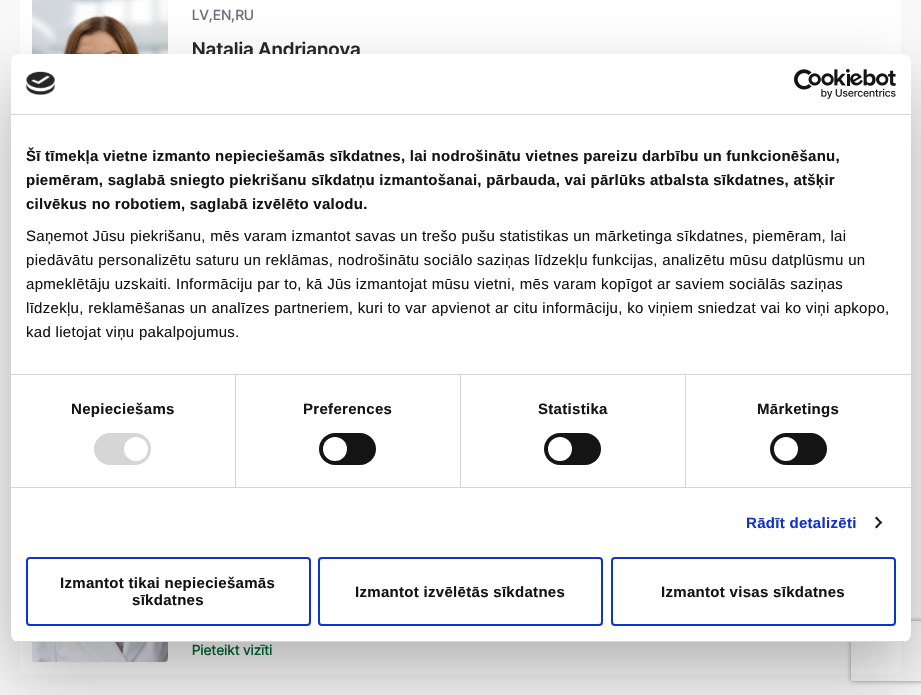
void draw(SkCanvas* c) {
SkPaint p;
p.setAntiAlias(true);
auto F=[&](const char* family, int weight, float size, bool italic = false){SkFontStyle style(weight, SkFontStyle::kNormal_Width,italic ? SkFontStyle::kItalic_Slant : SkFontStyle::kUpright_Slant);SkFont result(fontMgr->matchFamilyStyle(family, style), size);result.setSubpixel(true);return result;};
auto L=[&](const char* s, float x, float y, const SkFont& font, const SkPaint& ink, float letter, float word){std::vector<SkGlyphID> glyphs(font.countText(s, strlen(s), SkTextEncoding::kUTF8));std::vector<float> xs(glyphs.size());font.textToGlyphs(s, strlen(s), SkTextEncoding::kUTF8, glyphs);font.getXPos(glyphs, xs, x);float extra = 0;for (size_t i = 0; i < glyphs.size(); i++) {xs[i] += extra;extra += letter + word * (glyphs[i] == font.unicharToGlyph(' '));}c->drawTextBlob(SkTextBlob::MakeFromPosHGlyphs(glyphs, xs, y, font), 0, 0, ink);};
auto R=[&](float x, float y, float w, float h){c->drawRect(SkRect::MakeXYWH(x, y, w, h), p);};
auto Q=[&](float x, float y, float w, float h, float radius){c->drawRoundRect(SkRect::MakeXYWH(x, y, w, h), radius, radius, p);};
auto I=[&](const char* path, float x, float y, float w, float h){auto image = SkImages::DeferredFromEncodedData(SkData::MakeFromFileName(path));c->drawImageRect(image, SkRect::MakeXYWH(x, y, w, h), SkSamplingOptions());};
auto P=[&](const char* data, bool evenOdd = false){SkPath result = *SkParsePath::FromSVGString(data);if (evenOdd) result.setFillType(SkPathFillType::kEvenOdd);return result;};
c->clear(0xfff9f9fa);
p.setColor(0xffffffff);
R(20,0,881,54);
I("1.png",32,0,136,54);
I("2.png",63,11,91,43);
auto f1 = F("Inter Tight",500,14);
p.setColor(0xff6b7280);
L("LV,EN,RU",192,20,f1,p,.25,0);
auto f2 = F("Inter Tight",600,19);
p.setColor(0xff282828);
L("Nataļja Andrianova",192,56,f2,p,.4,0);
p.setColor(0xffffffff);
Q(20,461,881,213,8);
I("4.png",32,658,136,5);
I("3.png",32,642,136,20);
p.setColor(0xff016b36);
L("Pieteikt vizīti",192,655,f1,p,.25,0);
p.setColor(0x4d000000);
p.setMaskFilter(SkMaskFilter::MakeBlur(kNormal_SkBlurStyle, 34));
c->drawRoundRect(SkRect::MakeXYWH(11,86,900,588),8,8,p);
p.setMaskFilter(nullptr);
c->save();
c->clipPath(P("M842 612h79v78h-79zm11 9h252c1 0 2 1 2 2v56c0 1-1 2-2 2h-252c-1 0-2-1-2-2v-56c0-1 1-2 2-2z",true),true);
p.setColor(0xff808080);
p.setMaskFilter(SkMaskFilter::MakeBlur(kNormal_SkBlurStyle, 2.5));
c->drawRoundRect(SkRect::MakeXYWH(851,621,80,60),2,2,p);
p.setMaskFilter(nullptr);
c->restore();
p.setColor(0xffffffff);
Q(11,54,900,588,8);
p.setColor(0xffd6d6d6);
R(11,114,900,1);
I("5.png",25,71,30,24);
I("6.png",794,69,102,30);
R(11,374,900,1);
auto f3 = F("Liberation Sans",700,15);
p.setColor(0xff141414);
L("Šī tīmekļa vietne izmanto nepieciešamās sīkdatnes, lai nodrošinātu vietnes pareizu darbību un funkcionēšanu,",26,161,f3,p,.25,0);
L("piemēram, saglabā sniegto piekrišanu sīkdatņu izmantošanai, pārbauda, vai pārlūks atbalsta sīkdatnes, atšķir",26,185,f3,p,.25,0);
L("cilvēkus no robotiem, saglabā izvēlēto valodu.",26,209,f3,p,.25,0);
auto f4 = F("Liberation Sans",400,15);
L("Saņemot Jūsu piekrišanu, mēs varam izmantot savas un trešo pušu statistikas un mārketinga sīkdatnes, piemēram, lai",26,241,f4,p,.3,0);
L("piedāvātu personalizētu saturu un reklāmas, nodrošinātu sociālo saziņas līdzekļu funkcijas, analizētu mūsu datplūsmu un",26,265,f4,p,.3,0);
L("apmeklētāju uzskaiti. Informāciju par to, kā Jūs izmantojat mūsu vietni, mēs varam kopīgot ar saviem sociālās saziņas",26,289,f4,p,.3,0);
L("līdzekļu, reklamēšanas un analīzes partneriem, kuri to var apvienot ar citu informāciju, ko viņiem sniedzat vai ko viņi apkopo,",26,313,f4,p,.3,0);
L("kad lietojat viņu pakalpojumus.",26,337,f4,p,.3,0);
p.setColor(0xffd6d6d6);
R(11,487,900,1);
R(235,375,1,112);
p.setColor(0xff141414);
L("Nepieciešams",71,414,f3,p,.3,0);
p.setColor(0xffd6d6d6);
Q(94,433,57,32,16);
p.setColor(0xffffffff);
c->drawCircle(136,449,12,p);
p.setColor(0xffd6d6d6);
R(460,375,1,112);
p.setColor(0xff141414);
L("Preferences",303,414,f3,p,.3,0);
Q(319,433,57,32,16);
p.setColor(0xffffffff);
c->drawCircle(335,449,12,p);
p.setColor(0xffd6d6d6);
R(685,375,1,112);
p.setColor(0xff141414);
L("Statistika",538,414,f3,p,.3,0);
Q(544,433,57,32,16);
p.setColor(0xffffffff);
c->drawCircle(560,449,12,p);
p.setColor(0xff141414);
L("Mārketings",757,414,f3,p,.3,0);
Q(770,433,57,32,16);
p.setColor(0xffffffff);
c->drawCircle(786,449,12,p);
p.setColor(0xff1032cf);
L("Rādīt detalizēti",746,528,f3,p,.3,0);
p.setColor(0xff141414);
c->drawPath(P("M876.5 516.5l5.5 6l-1 1.5l-6-6z"),p);
c->drawPath(P("M881 521l1 1.5l-5.5 6l-1.5-1.5z"),p);
c->save();
c->clipPath(P("M19 54h884c4.5 0 8 3.5 8 8v572c0 4.5-3.5 8-8 8h-884c-4.5 0-8-3.5-8-8v-572c0-4.5 3.5-8 8-8z"),true);
p.setColor(0xffd6d6d6);
R(11,641,900,1);
c->restore();
p.setStroke(true);
p.setStrokeWidth(2);
p.setColor(0xff1032cf);
c->drawRoundRect(SkRect::MakeXYWH(27,558,283,67),3,3,p);
p.setStroke(false);
p.setColor(0xff141414);
L("Izmantot tikai nepieciešamās",60,588,f3,p,.3,0);
L("sīkdatnes",132,605,f3,p,.3,0);
p.setStroke(true);
p.setColor(0xff1032cf);
c->drawRoundRect(SkRect::MakeXYWH(319,558,283,67),3,3,p);
p.setStroke(false);
p.setColor(0xff141414);
L("Izmantot izvēlētās sīkdatnes",355,597,f3,p,.3,0);
p.setStroke(true);
p.setColor(0xff1032cf);
c->drawRoundRect(SkRect::MakeXYWH(612,558,283,67),3,3,p);
p.setStroke(false);
p.setColor(0xff141414);
L("Izmantot visas sīkdatnes",661,597,f3,p,.3,0);
}
